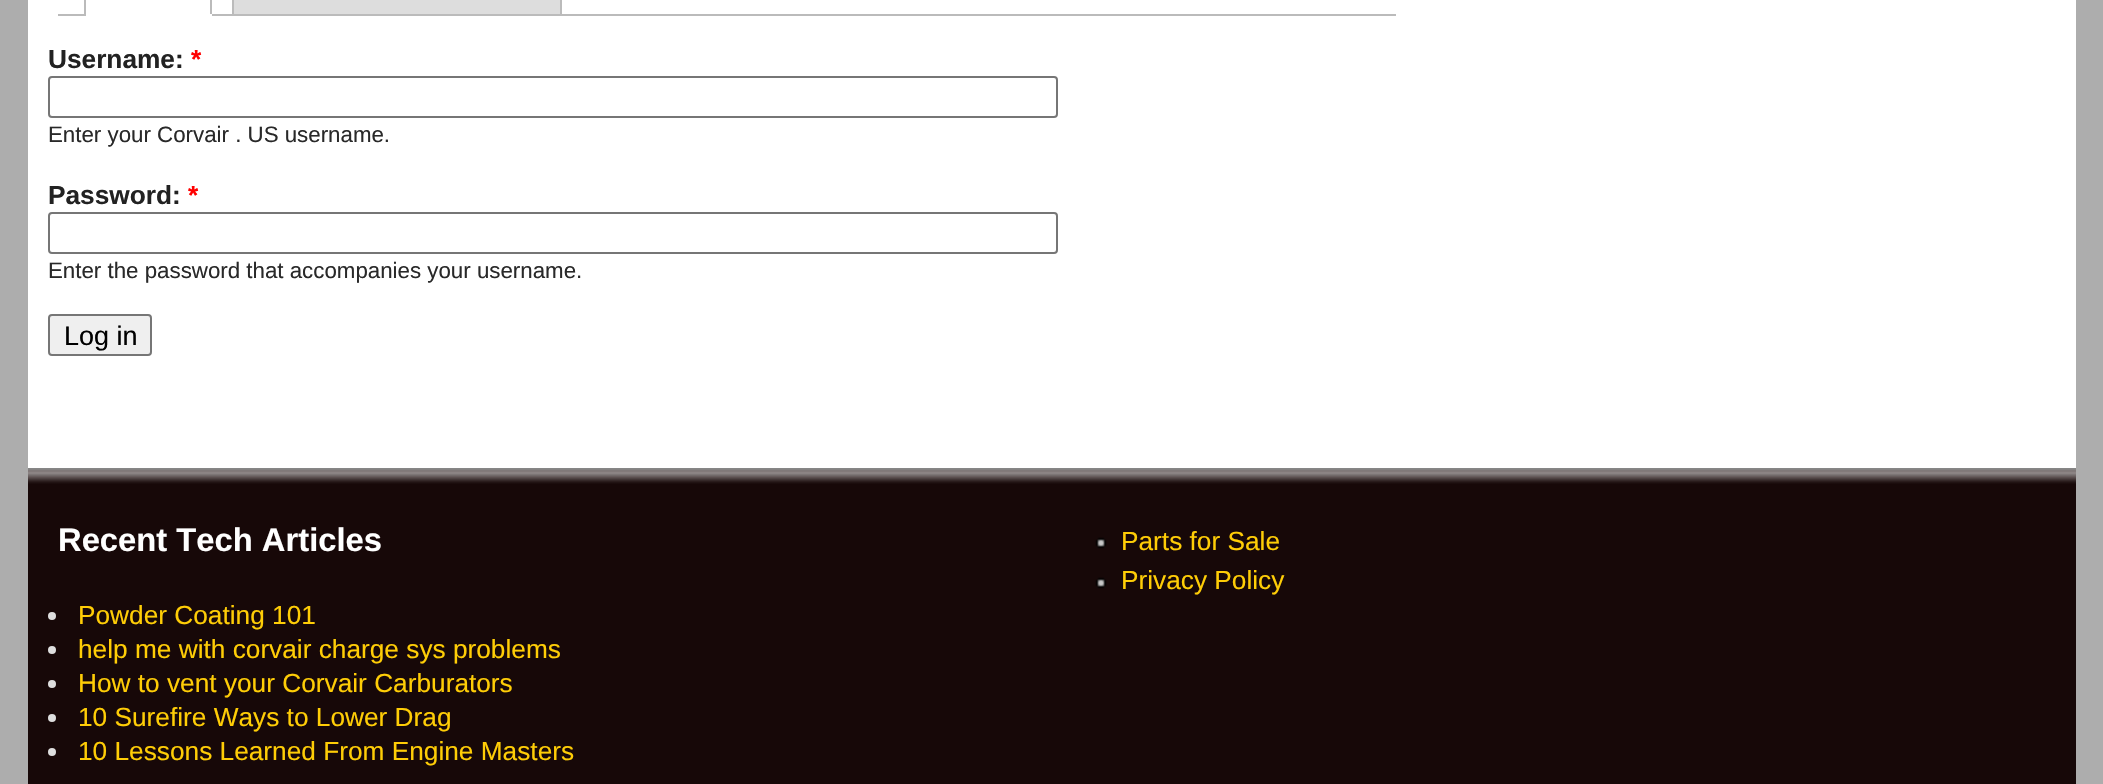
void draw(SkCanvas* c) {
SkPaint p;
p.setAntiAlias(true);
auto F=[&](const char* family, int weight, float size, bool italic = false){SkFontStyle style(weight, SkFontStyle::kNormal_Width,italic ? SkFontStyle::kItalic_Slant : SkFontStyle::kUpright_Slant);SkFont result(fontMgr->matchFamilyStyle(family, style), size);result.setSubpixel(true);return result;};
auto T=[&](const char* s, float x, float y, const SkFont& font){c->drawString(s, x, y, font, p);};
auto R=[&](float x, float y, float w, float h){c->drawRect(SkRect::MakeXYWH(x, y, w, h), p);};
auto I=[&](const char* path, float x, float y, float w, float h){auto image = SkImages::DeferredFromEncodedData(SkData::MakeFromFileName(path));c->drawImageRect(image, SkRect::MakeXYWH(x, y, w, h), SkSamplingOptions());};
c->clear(0xffadadad);
p.setColor(0xffffffff);
R(28,0,2048,468);
p.setColor(0xffbbbbbb);
R(58,14,1338,2);
R(210,0,2,16);
p.setColor(0xffffffff);
R(84,14,128,2);
p.setColor(0xffbbbbbb);
R(84,0,2,16);
R(232,0,2,14);
p.setColor(0xffdddddd);
R(234,0,326,14);
p.setColor(0xffbbbbbb);
R(560,0,2,14);
auto f1 = F("Liberation Sans",700,26.25);
p.setColor(0xff222222);
T("Username:",48,68,f1);
p.setColor(0xffff0000);
T("*",191,68,f1);
p.setStroke(true);
p.setStrokeWidth(2);
p.setColor(0xff767676);
c->drawRoundRect(SkRect::MakeXYWH(49,77,1008,40),3,3,p);
auto f2 = F("Liberation Sans",400,22.3);
p.setStroke(false);
p.setColor(0xff292929);
T("Enter your Corvair . US username.",48,142,f2);
p.setColor(0xff222222);
T("Password:",48,204,f1);
p.setColor(0xffff0000);
T("*",188,204,f1);
p.setStroke(true);
p.setColor(0xff767676);
c->drawRoundRect(SkRect::MakeXYWH(49,213,1008,40),3,3,p);
p.setStroke(false);
p.setColor(0xff292929);
T("Enter the password that accompanies your username.",48,278,f2);
p.setColor(0xffefefef);
c->drawRoundRect(SkRect::MakeXYWH(49,315,102,40),3,3,p);
p.setStroke(true);
p.setColor(0xff767676);
c->drawRoundRect(SkRect::MakeXYWH(49,315,102,40),3,3,p);
auto f3 = F("Liberation Sans",400,27);
p.setStroke(false);
p.setColor(0xff000000);
T("Log in",64,345,f3);
p.setColor(0xff170808);
R(28,484,2048,300);
I("1.png",28,468,2048,16);
auto f4 = F("Liberation Sans",700,32.75);
p.setColor(0xffffffff);
T("Recent Tech Articles",58,551,f4);
p.setColor(0xffdedede);
c->drawCircle(52,616,4,p);
auto f5 = F("Liberation Sans",400,26.25);
p.setColor(0xffffcd06);
T("Powder Coating 101",78,624,f5);
p.setColor(0xffdedede);
c->drawCircle(52,650,4,p);
p.setColor(0xffffcd06);
T("help me with corvair charge sys problems",78,658,f5);
p.setColor(0xffdedede);
c->drawCircle(52,684,4,p);
p.setColor(0xffffcd06);
T("How to vent your Corvair Carburators",78,692,f5);
p.setColor(0xffdedede);
c->drawCircle(52,718,4,p);
p.setColor(0xffffcd06);
T("10 Surefire Ways to Lower Drag",78,726,f5);
p.setColor(0xffdedede);
c->drawCircle(52,752,4,p);
p.setColor(0xffffcd06);
T("10 Lessons Learned From Engine Masters",78,760,f5);
I("2.png",1095,537,12,12);
T("Parts for Sale",1121,550,f5);
I("2.png",1095,577,12,12);
T("Privacy Policy",1121,589,f5);
}
